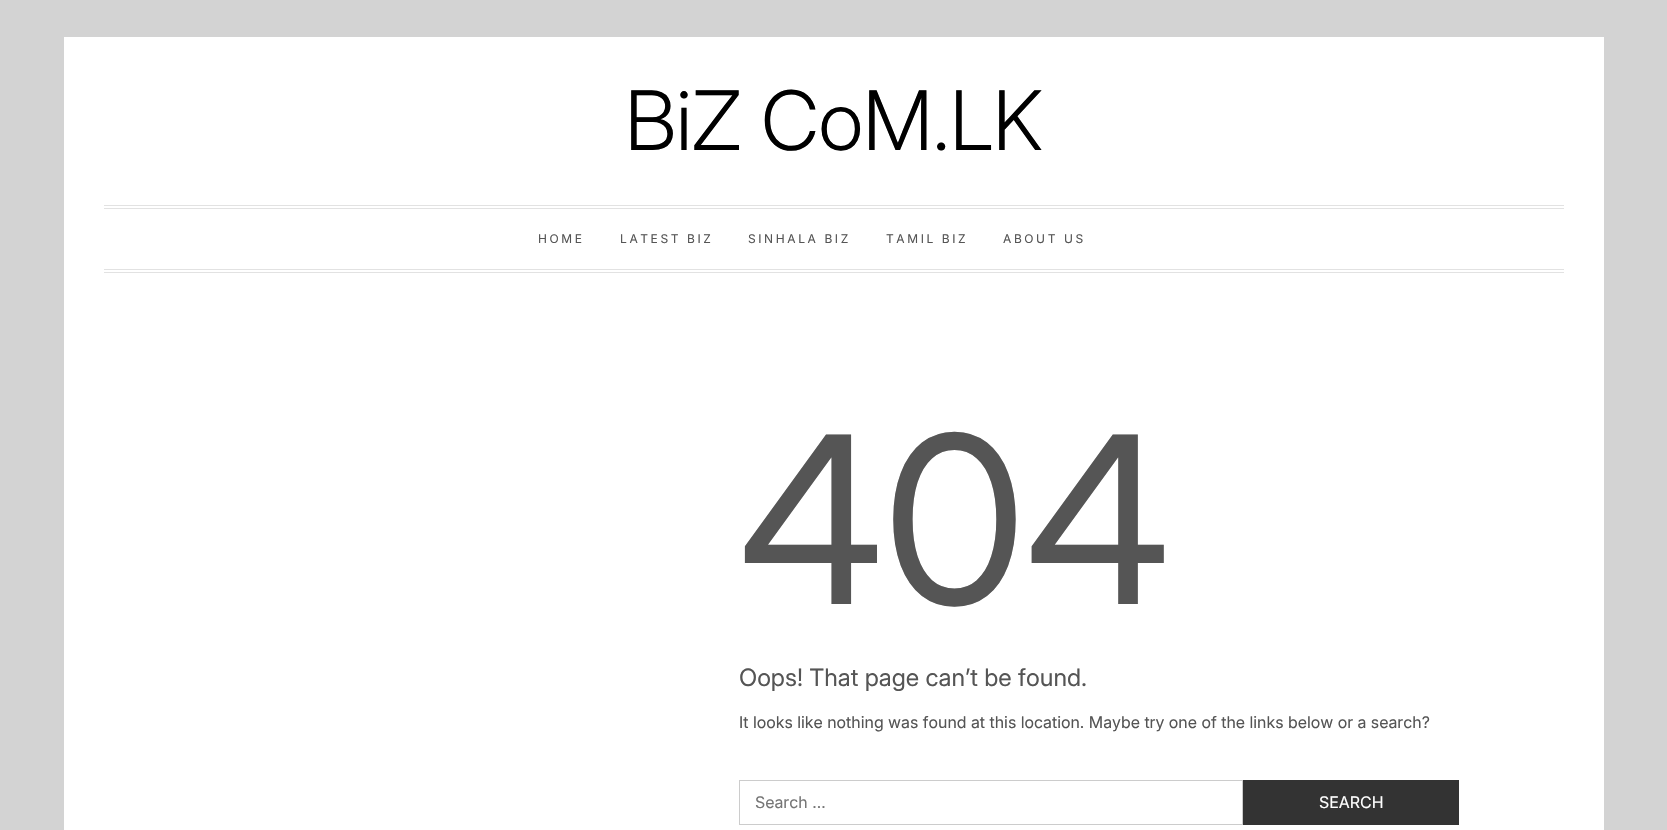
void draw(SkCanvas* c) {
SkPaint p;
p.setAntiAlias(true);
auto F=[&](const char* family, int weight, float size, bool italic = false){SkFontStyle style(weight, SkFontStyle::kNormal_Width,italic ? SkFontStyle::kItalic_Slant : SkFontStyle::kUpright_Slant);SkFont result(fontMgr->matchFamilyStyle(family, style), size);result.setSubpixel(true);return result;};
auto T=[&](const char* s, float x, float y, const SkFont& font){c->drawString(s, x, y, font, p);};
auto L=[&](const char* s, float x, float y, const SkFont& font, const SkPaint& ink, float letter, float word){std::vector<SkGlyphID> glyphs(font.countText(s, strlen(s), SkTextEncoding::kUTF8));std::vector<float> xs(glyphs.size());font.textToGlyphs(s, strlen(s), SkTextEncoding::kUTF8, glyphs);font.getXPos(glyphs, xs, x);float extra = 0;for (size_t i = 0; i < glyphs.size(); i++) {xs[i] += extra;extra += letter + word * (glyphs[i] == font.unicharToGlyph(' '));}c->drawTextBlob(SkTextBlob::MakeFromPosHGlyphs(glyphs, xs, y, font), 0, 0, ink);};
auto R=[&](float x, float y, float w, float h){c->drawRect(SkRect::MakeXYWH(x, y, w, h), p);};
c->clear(0xffd3d3d3);
p.setColor(0xffffffff);
R(64,37,1540,793);
auto f1 = F("Inter",300,82);
p.setColor(0xff000000);
T("BiZ CoM.LK",625,150,f1);
p.setColor(0xffe2e2e2);
R(104,205,1460,1);
R(104,208,1460,1);
R(104,269,1460,1);
R(104,272,1460,1);
auto f2 = F("Inter",400,12);
p.setColor(0xff555555);
L("HOME",538,243,f2,p,2.6,0);
L("LATEST BIZ",620,243,f2,p,2.6,0);
L("SINHALA BIZ",748,243,f2,p,2.6,0);
L("TAMIL BIZ",886,243,f2,p,2.6,0);
L("ABOUT US",1003,243,f2,p,2.6,0);
auto f3 = F("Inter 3",400,233);
T("404",739,604,f3);
auto f4 = F("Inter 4",400,24);
T("Oops! That page can’t be found.",739,686,f4);
auto f5 = F("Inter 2",400,16);
T("It looks like nothing was found at this location. Maybe try one of the links below or a search?",739,728,f5);
p.setStroke(true);
p.setStrokeWidth(1);
p.setColor(0xffcccccc);
c->drawRect(SkRect::MakeXYWH(739.5,780.5,503,44),p);
p.setStroke(false);
p.setColor(0xff757575);
T("Search …",755,808,f5);
p.setColor(0xff333333);
R(1243,780,216,45);
p.setColor(0xffffffff);
T("SEARCH",1319,808,f5);
}
